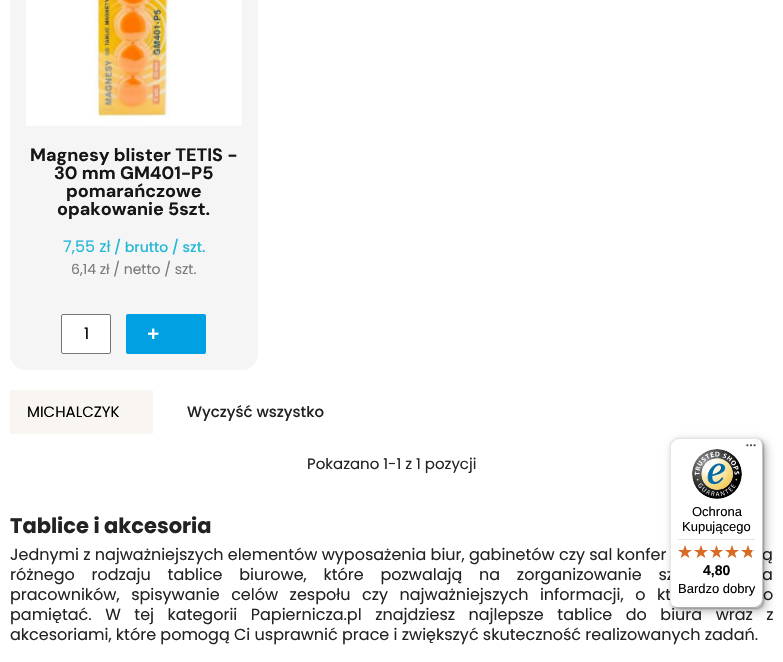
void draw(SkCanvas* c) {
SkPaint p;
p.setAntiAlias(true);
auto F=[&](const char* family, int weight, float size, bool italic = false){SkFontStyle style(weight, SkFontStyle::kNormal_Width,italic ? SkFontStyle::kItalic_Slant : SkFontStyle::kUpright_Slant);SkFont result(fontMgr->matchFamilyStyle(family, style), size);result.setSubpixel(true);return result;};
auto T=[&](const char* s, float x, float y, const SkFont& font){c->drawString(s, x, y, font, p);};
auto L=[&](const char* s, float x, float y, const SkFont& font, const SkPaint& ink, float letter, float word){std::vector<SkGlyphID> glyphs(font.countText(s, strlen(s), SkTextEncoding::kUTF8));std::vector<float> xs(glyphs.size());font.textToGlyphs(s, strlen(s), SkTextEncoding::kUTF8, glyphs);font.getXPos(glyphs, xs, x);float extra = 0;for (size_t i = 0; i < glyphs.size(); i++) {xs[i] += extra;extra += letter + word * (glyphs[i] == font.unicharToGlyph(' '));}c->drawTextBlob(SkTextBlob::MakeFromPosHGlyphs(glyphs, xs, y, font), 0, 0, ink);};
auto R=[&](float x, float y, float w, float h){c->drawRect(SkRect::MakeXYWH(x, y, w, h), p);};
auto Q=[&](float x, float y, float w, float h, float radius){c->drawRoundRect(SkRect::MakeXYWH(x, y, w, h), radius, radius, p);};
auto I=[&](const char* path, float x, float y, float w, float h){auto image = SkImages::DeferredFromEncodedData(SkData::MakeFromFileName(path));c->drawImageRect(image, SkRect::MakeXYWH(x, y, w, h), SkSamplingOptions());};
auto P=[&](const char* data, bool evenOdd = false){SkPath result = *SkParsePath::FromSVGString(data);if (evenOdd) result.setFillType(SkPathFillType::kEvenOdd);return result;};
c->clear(0xffffffff);
p.setColor(0xfff5f5f5);
Q(10,-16,248,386,16);
I("1.png",26,0,216,126);
auto f1 = F("DM Sans",700,18);
p.setColor(0xff161616);
T("Magnesy blister TETIS -",30,161,f1);
T("30 mm GM401-P5",54,179,f1);
T("pomarańczowe",66,197,f1);
T("opakowanie 5szt.",57,215,f1);
auto f2 = F("Poppins",400,16);
p.setColor(0xff24b9d7);
T("7,55 zł",63,252,f2);
auto f3 = F("Poppins",500,14);
T("/ brutto / szt.",114,252,f3);
auto f4 = F("Poppins",400,14);
p.setColor(0xff7a7a7a);
T("6,14 zł / netto / szt.",71,274,f4);
p.setColor(0xffffffff);
c->drawRoundRect(SkRect::MakeXYWH(61.5,314.5,49,39),1.5,1.5,p);
p.setStroke(true);
p.setStrokeWidth(1);
p.setColor(0xff767676);
c->drawRoundRect(SkRect::MakeXYWH(61.5,314.5,49,39),1.5,1.5,p);
p.setStroke(false);
p.setColor(0xff000000);
T("1",84,339,f2);
p.setColor(0xff00a0e3);
Q(126,314,80,40,2);
auto f5 = F("Poppins",500,20);
p.setColor(0xffffffff);
T("+",146,341,f5);
p.setColor(0xfff9f6f1);
R(10,390,143,44);
auto f6 = F("Poppins",400,15);
p.setColor(0xff000000);
T("MICHALCZYK",27,417,f6);
auto f7 = F("Poppins",500,15);
p.setColor(0xff232323);
T("Wyczyść wszystko",187,417,f7);
T("Pokazano 1-1 z 1 pozycji",307,469,f6);
auto f8 = F("Poppins",700,21);
T("Tablice i akcesoria",10,533,f8);
T("Jednymi z najważniejszych elementów wyposażenia biur, gabinetów czy sal konfer",10,560,f2);
T("ą",762,560,f2);
L("różnego rodzaju tablice biurowe, które pozwalają na zorganizowanie sz",10,580,f2,p,0,12.5);
L("a",762,580,f2,p,0,12.5);
L("pracowników, spisywanie celów zespołu czy najważniejszych informacji, o kt",10,600,f2,p,0,7.25);
L("o",763,600,f2,p,0,7.25);
L("pamiętać. W tej kategorii Papiernicza.pl znajdziesz najlepsze tablice do biura wraz z",10,620,f2,p,0,9.25);
T("akcesoriami, które pomogą Ci usprawnić prace i zwiększyć skuteczność realizowanych zadań.",10,640,f2);
p.setColor(0x26000000);
p.setMaskFilter(SkMaskFilter::MakeBlur(kNormal_SkBlurStyle, 4));
c->drawRoundRect(SkRect::MakeXYWH(673,441,93,170),8,8,p);
p.setMaskFilter(nullptr);
p.setMaskFilter(SkMaskFilter::MakeBlur(kNormal_SkBlurStyle, 1));
c->drawRoundRect(SkRect::MakeXYWH(671,439,93,170),8,8,p);
p.setMaskFilter(nullptr);
p.setMaskFilter(SkMaskFilter::MakeBlur(kNormal_SkBlurStyle, 4));
c->drawRoundRect(SkRect::MakeXYWH(673,441,93,170),8,8,p);
p.setMaskFilter(nullptr);
p.setMaskFilter(SkMaskFilter::MakeBlur(kNormal_SkBlurStyle, 1));
c->drawRoundRect(SkRect::MakeXYWH(671,439,93,170),8,8,p);
p.setMaskFilter(nullptr);
p.setColor(0xffffffff);
Q(670,438,93,170,8);
p.setColor(0x1a000000);
c->drawPath(P("M679 439h77c2 0 4 1 6 3c-2-2-4-4-7-4h-77c-4 0-8 4-8 8v154c0 3 2 5 4 7c-2-2-3-4-3-6v-154c0-4 4-8 8-8z"),p);
p.setColor(0x33000000);
c->drawPath(P("M671 604c2 2 4 4 7 4h77c4 0 8-4 8-8v-154c0-3-2-5-4-7c2 2 3 4 3 6v154c0 4-4 8-8 8h-77c-2 0-4-1-6-3z"),p);
p.setColor(0x33323232);
c->drawPath(P("M672 605c1 2 4 3 6 3h77c4 0 8-4 8-8v-154c0-2-1-5-3-6c1 1 2 3 2 5v154c0 5-3 8-8 8h-77c-2 0-4-1-5-2z"),p);
p.setColor(0x4dffffff);
c->drawPath(P("M754 608h1c4 0 8-4 8-8v-154c0-4-4-8-8-8h-1c5 0 8 3 8 8v154c0 4-3 8-8 8z"),p);
I("2.png",746,444,10,3);
I("3.png",692,449,50,50);
auto f9 = F("Liberation Sans",400,13);
p.setColor(0xff000000);
T("Ochrona",692,516,f9);
T("Kupującego",682,531,f9);
p.setColor(0xffe5e5e5);
R(678,539,77,1);
I("4.png",678,545,14,13);
I("4.png",694,545,14,13);
I("5.png",710,545,13,13);
I("4.png",725,545,14,13);
I("4.png",741,545,14,13);
I("6.png",678,545,14,13);
I("6.png",694,545,14,13);
I("7.png",710,545,13,13);
I("6.png",725,545,14,13);
I("8.png",741,545,11,13);
auto f10 = F("Liberation Sans",700,14);
p.setColor(0xff000000);
T("4,80",703,575,f10);
T("Bardzo dobry",678,593,f9);
}
